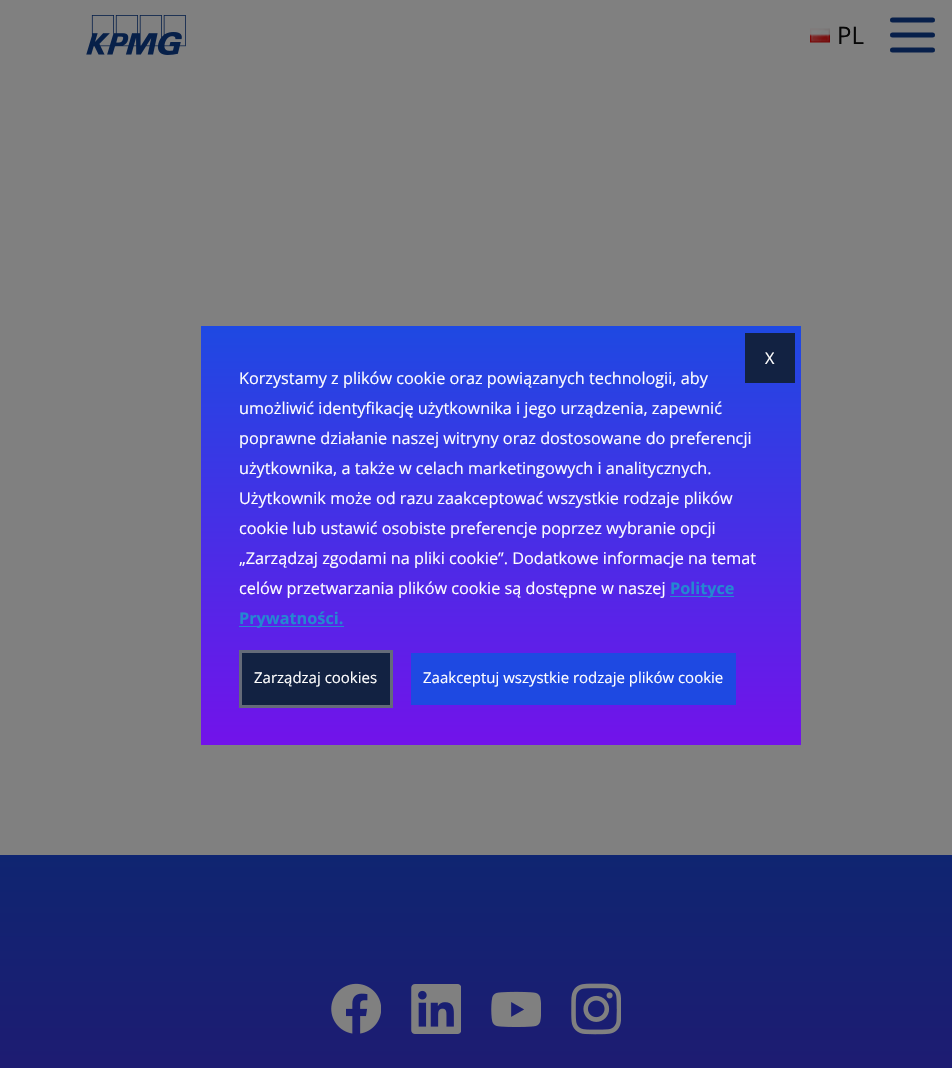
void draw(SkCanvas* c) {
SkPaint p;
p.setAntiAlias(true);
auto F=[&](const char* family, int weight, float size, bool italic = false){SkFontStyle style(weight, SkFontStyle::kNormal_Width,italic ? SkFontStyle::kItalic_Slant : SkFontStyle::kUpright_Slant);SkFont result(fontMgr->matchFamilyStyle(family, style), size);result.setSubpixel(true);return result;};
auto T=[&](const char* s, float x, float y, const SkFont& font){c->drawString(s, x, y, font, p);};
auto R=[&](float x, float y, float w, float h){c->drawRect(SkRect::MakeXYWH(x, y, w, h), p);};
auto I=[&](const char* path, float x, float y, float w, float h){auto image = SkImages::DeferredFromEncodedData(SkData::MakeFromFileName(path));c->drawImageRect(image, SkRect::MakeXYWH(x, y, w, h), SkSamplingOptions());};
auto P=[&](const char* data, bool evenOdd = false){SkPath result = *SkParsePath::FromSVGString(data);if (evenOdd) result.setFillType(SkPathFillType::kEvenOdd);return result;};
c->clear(0xff808080);
I("1.png",86,15,100,40);
I("2.png",810,28,20,15);
auto f1 = F("Open Sans",400,24);
p.setColor(0xff070707);
T("PL",837,44,f1);
p.setStroke(true);
p.setStrokeWidth(5);
p.setStrokeCap(SkPaint::kRound_Cap);
p.setColor(0xff071f4a);
c->drawPath(P("M892.5 20h40m-40 15h40m-40 15h40"),p);
p.setStroke(false);
{
const SkColor colors[] = {0xff1e49e2,0xff7213ea};
const float stops[] = {0,1};
const SkPoint ends[] = {{501,326}, {501,744}};
p.setShader(SkGradientShader::MakeLinear(ends, colors, stops, 2, SkTileMode::kClamp));
p.setAlpha(255);
}
R(201,326,600,419);
p.setShader(nullptr);
p.setColor(0xff122242);
R(745,333,50,50);
auto f2 = F("Open Sans",400,16.25);
p.setColor(0xffffffff);
T("X",765,364,f2);
p.setColor(0xff122242);
c->drawRect(SkRect::MakeXYWH(240.5,651.5,151,55),p);
p.setStroke(true);
p.setStrokeWidth(3);
p.setStrokeCap(SkPaint::kButt_Cap);
p.setColor(0xff646b79);
c->drawRect(SkRect::MakeXYWH(240.5,651.5,151,55),p);
auto f3 = F("Open Sans",400,15);
p.setStroke(false);
p.setColor(0xffffffff);
T("Zarządzaj cookies",254,683,f3);
p.setColor(0xff1e49e2);
R(411,653,325,52);
p.setColor(0xffffffff);
T("Zaakceptuj wszystkie rodzaje plików cookie",423,683,f3);
T("Korzystamy z plików cookie oraz powiązanych technologii, aby",239,384,f2);
T("umożliwić identyfikację użytkownika i jego urządzenia, zapewnić",239,414,f2);
T("poprawne działanie naszej witryny oraz dostosowane do preferencji",239,444,f2);
T("użytkownika, a także w celach marketingowych i analitycznych.",239,474,f2);
T("Użytkownik może od razu zaakceptować wszystkie rodzaje plików",239,504,f2);
T("cookie lub ustawić osobiste preferencje poprzez wybranie opcji",239,534,f2);
T("„Zarządzaj zgodami na pliki cookie”. Dodatkowe informacje na temat",239,564,f2);
T("celów przetwarzania plików cookie są dostępne w naszej",239,594,f2);
p.setColor(0xff2488d1);
R(670,596,64,1);
auto f4 = F("Open Sans",700,16.25);
T("Polityce",670,594,f4);
R(239,626,105,1);
T("Prywatności.",239,624,f4);
{
const SkColor colors[] = {0xff0f2571,0xff390a75};
const float stops[] = {0,1};
const SkPoint ends[] = {{476,855}, {476,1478}};
p.setShader(SkGradientShader::MakeLinear(ends, colors, stops, 2, SkTileMode::kClamp));
p.setAlpha(255);
}
R(0,855,952,213);
I("3.png",331,983,50,51);
I("4.png",411,984,50,50);
I("5.png",491,991,50,36);
I("6.png",571,983,50,52);
}
